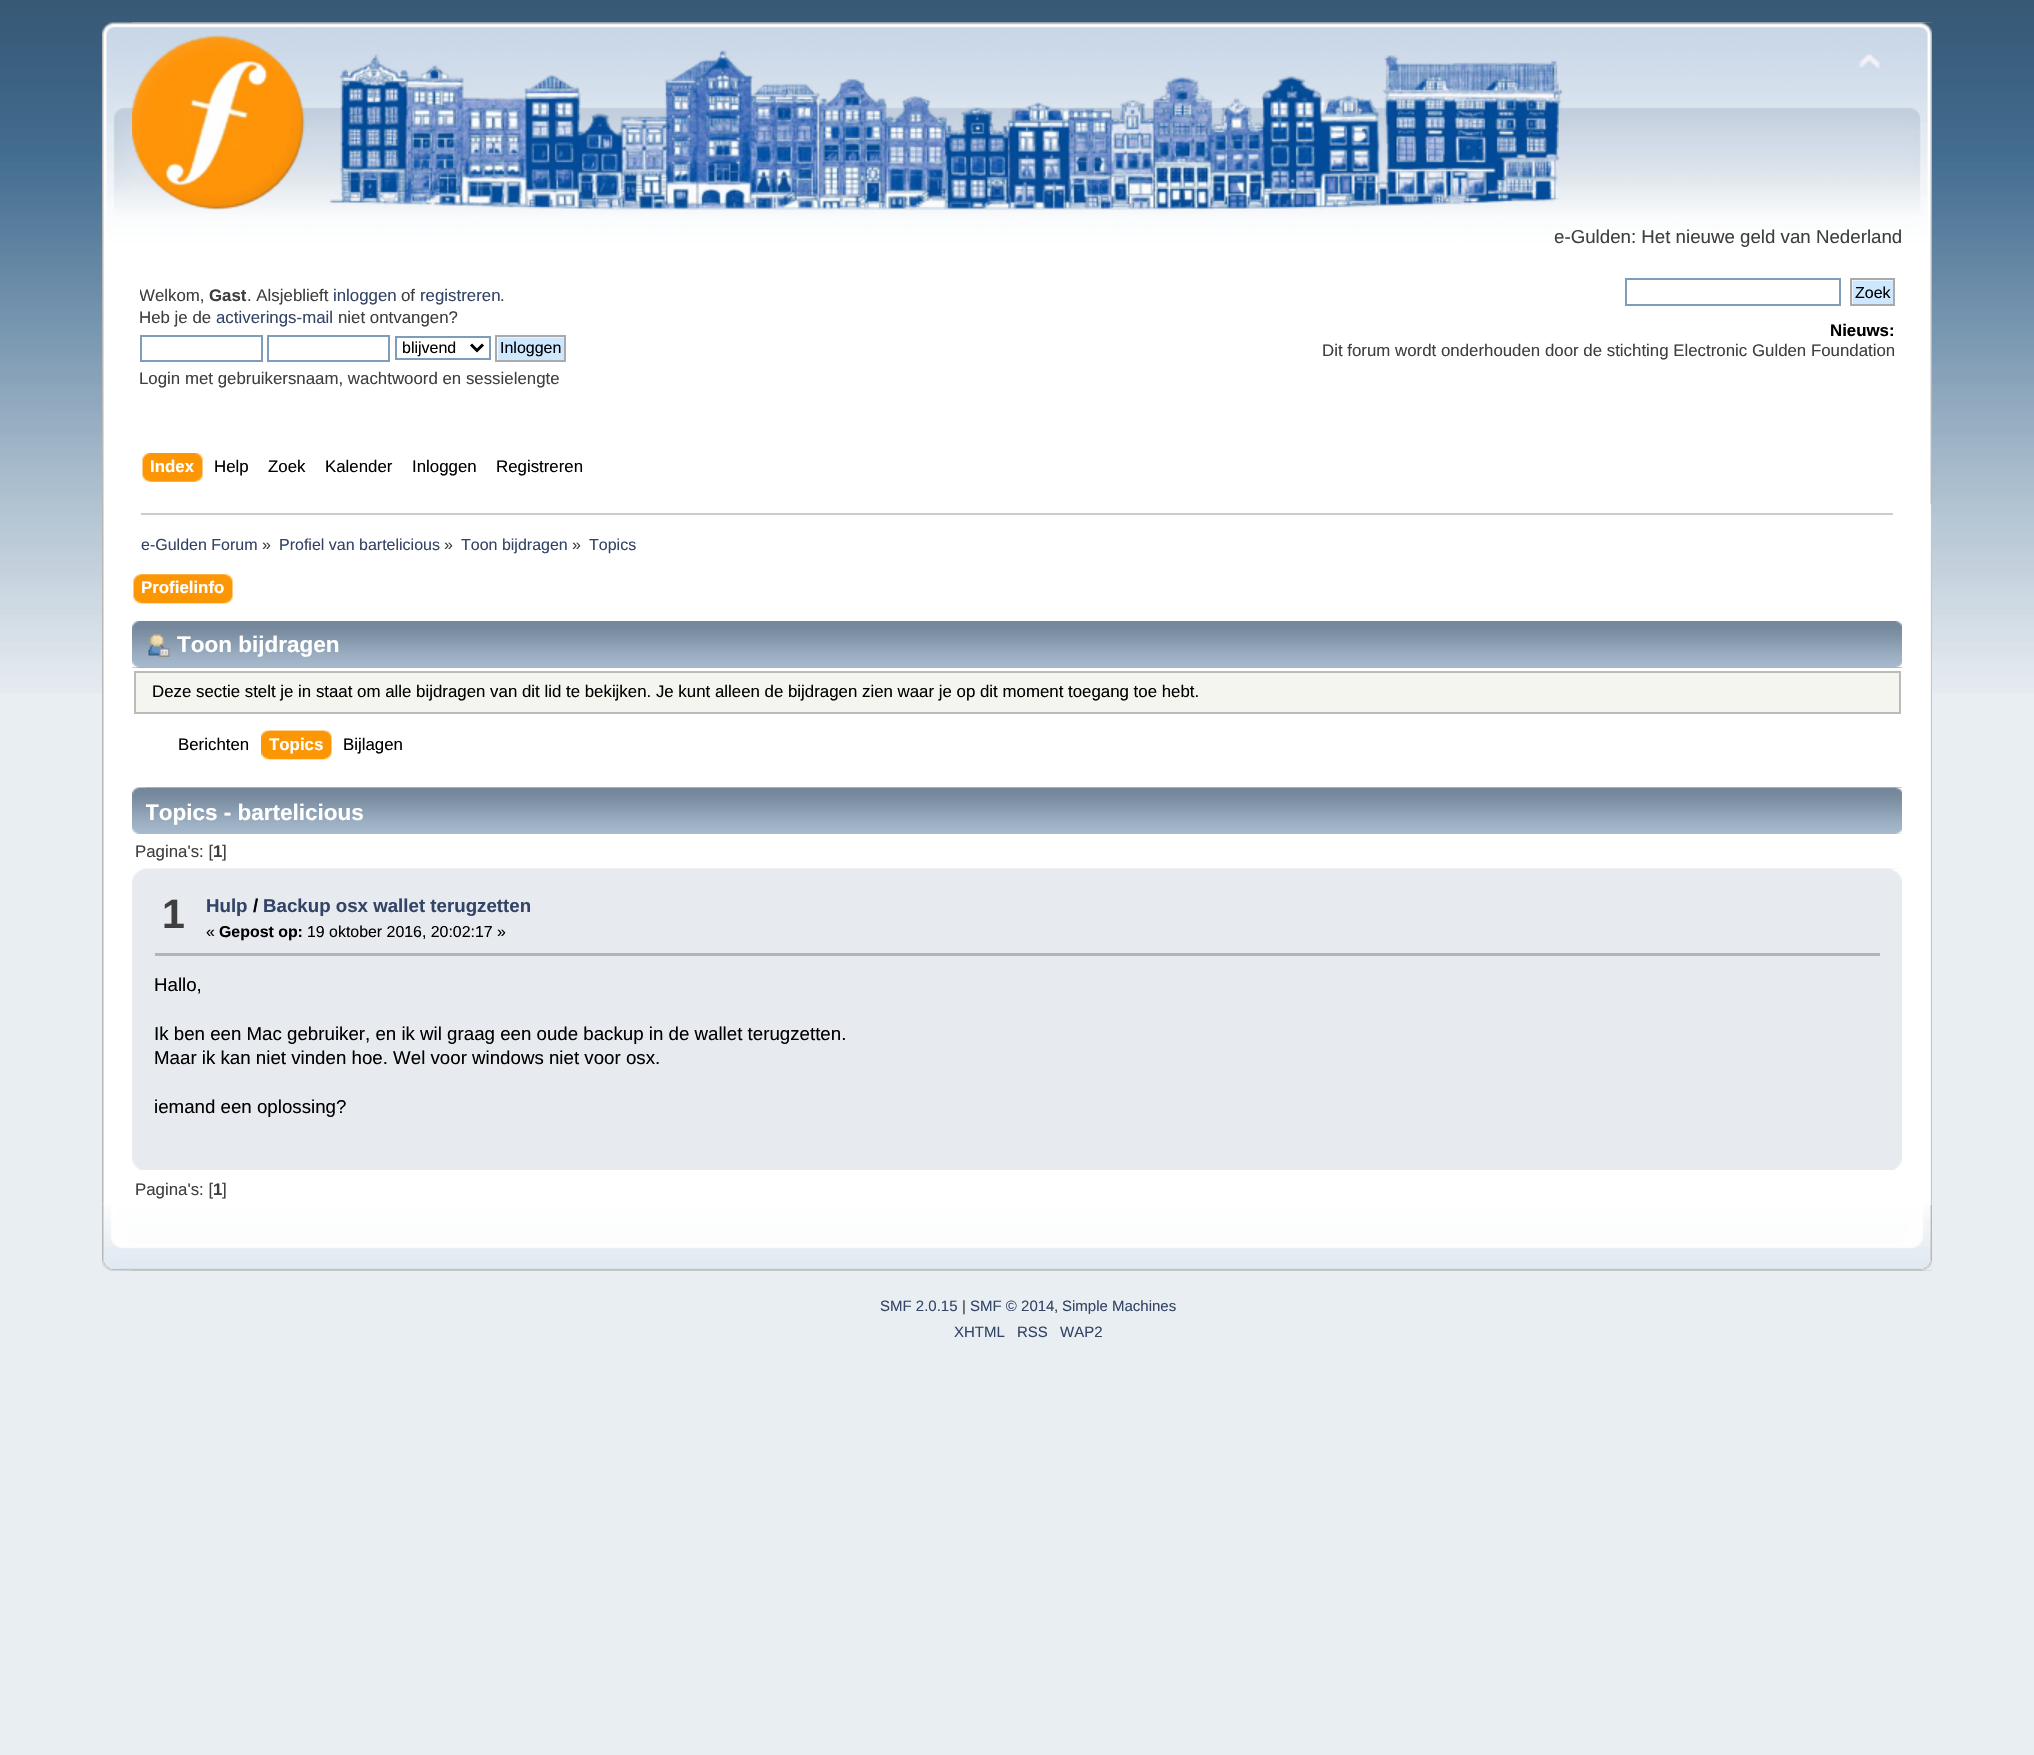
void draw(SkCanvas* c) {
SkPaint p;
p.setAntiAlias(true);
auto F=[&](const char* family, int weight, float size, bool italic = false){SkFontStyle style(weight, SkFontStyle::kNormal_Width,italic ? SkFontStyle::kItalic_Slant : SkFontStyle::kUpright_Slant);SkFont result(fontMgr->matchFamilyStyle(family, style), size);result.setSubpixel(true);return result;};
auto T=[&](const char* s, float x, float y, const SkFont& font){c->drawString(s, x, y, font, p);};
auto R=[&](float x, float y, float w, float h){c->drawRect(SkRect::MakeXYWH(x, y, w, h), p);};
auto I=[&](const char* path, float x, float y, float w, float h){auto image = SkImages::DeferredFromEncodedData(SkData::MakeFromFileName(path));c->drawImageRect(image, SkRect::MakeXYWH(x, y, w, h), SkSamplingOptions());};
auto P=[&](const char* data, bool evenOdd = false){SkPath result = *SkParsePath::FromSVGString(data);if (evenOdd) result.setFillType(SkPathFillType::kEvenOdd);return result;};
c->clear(0xffe9eef2);
I("1.png",0,0,2034,693);
I("2.png",102,22,1830,482);
I("3.png",132,22,1800,482);
I("4.png",132,35,1431,175);
I("5.png",1858,53,23,17);
auto f1 = F("Liberation Sans",400,18.7);
p.setColor(0xff3f3f3f);
T("e-Gulden: Het nieuwe geld van Nederland",1554,243,f1);
c->save();
c->clipRect(SkRect::MakeXYWH(140,278,877,118));
auto f2 = F("Liberation Sans",400,16.85);
T("Welkom,",139,301,f2);
c->restore();
auto f3 = F("Liberation Sans",700,16.85);
T("Gast",209,301,f3);
T(". Alsjeblieft",247,301,f2);
p.setColor(0xff334466);
T("inloggen",333,301,f2);
p.setColor(0xff3f3f3f);
T("of",401,301,f2);
p.setColor(0xff334466);
T("registreren",420,301,f2);
p.setColor(0xff3f3f3f);
T(".",500,301,f2);
T("Heb je de",139,323,f2);
p.setColor(0xff334466);
T("activerings-mail",216,323,f2);
p.setColor(0xff3f3f3f);
T("niet ontvangen?",338,323,f2);
p.setStroke(true);
p.setStrokeWidth(2);
p.setColor(0xff7f9db9);
c->drawRect(SkRect::MakeXYWH(141,336,121,25),p);
c->drawRect(SkRect::MakeXYWH(268,336,121,25),p);
c->drawRect(SkRect::MakeXYWH(396,337,94,22),p);
p.setStrokeWidth(3);
p.setColor(0xff000000);
c->drawPath(P("M471 344.5l6 6l6-6"),p);
auto f4 = F("Liberation Sans",400,16);
p.setStroke(false);
T("blijvend",402,353,f4);
I("6.png",497,337,67,23);
p.setStroke(true);
p.setStrokeWidth(2);
p.setColor(0xffaaaaaa);
c->drawRect(SkRect::MakeXYWH(496,336,69,25),p);
p.setStroke(false);
p.setColor(0xff000000);
T("Inloggen",500,353,f4);
p.setColor(0xff3f3f3f);
T("Login met gebruikersnaam, wachtwoord en sessielengte",139,384,f2);
p.setStroke(true);
p.setColor(0xff7f9db9);
c->drawRect(SkRect::MakeXYWH(1626,279,214,26),p);
I("7.png",1852,280,41,24);
p.setColor(0xffaaaaaa);
c->drawRect(SkRect::MakeXYWH(1851,279,43,26),p);
p.setStroke(false);
p.setColor(0xff000000);
T("Zoek",1855,298,f4);
T("Nieuws:",1830,336,f3);
p.setColor(0xff3f3f3f);
T("Dit forum wordt onderhouden door de stichting Electronic Gulden Foundation",1322,356,f2);
I("8.png",150,453,53,29);
I("9.png",142,453,53,29);
p.setColor(0xffffffff);
T("Index",150,472,f3);
p.setColor(0xff000000);
T("Help",214,472,f2);
T("Zoek",268,472,f2);
T("Kalender",325,472,f2);
T("Inloggen",412,472,f2);
T("Registreren",496,472,f2);
p.setColor(0xffffffff);
R(102,504,1830,701);
I("10.png",102,504,2,701);
I("11.png",1930,504,2,701);
p.setColor(0xffcccccc);
R(141,513,1752,2);
p.setColor(0xff334466);
T("e-Gulden Forum",141,550,f4);
p.setColor(0xff3f3f3f);
T("»",262,550,f4);
p.setColor(0xff334466);
T("Profiel van bartelicious",279,550,f4);
p.setColor(0xff3f3f3f);
T("»",444,550,f4);
p.setColor(0xff334466);
T("Toon bijdragen",461,550,f4);
p.setColor(0xff3f3f3f);
T("»",572,550,f4);
p.setColor(0xff334466);
T("Topics",589,550,f4);
I("12.png",141,574,92,30);
I("13.png",133,574,92,30);
p.setColor(0xffffffff);
T("Profielinfo",141,593,f3);
p.setColor(0xff99abbf);
R(132,667,1770,1);
I("14.png",132,621,1770,47);
I("15.png",1895,621,7,47);
I("16.png",148,634,22,23);
auto f5 = F("Liberation Sans",700,22.5);
p.setColor(0xffffffff);
T("Toon bijdragen",177,652,f5);
p.setColor(0xfff5f5f0);
c->drawRect(SkRect::MakeXYWH(135,672,1765,41),p);
p.setStroke(true);
p.setColor(0xffbbbbbb);
c->drawRect(SkRect::MakeXYWH(135,672,1765,41),p);
p.setStroke(false);
p.setColor(0xff000000);
T("Deze sectie stelt je in staat om alle bijdragen van dit lid te bekijken. Je kunt alleen de bijdragen zien waar je op dit moment toegang toe hebt.",152,697,f2);
T("Berichten",178,750,f2);
I("17.png",268,730,64,30);
I("18.png",261,730,63,30);
p.setColor(0xffffffff);
T("Topics",269,750,f3);
p.setColor(0xff000000);
T("Bijlagen",343,750,f2);
I("19.png",132,787,1770,47);
I("20.png",145,787,1757,47);
c->save();
c->clipRect(SkRect::MakeXYWH(146,788,1756,46));
p.setColor(0xffffffff);
T("Topics - bartelicious",145,820,f5);
c->restore();
p.setColor(0xff3f3f3f);
T("Pagina's: [",135,857,f2);
T("1",213,857,f3);
T("]",222,857,f2);
p.setColor(0xffe7eaef);
R(132,881,1770,289);
I("21.png",132,868,1770,13);
I("22.png",162,868,1740,13);
auto f6 = F("Liberation Sans",700,41);
p.setColor(0xff3f3f3f);
T("1",162,928,f6);
auto f7 = F("Liberation Sans",700,18.7);
p.setColor(0xff334466);
T("Hulp",206,912,f7);
p.setColor(0xff000000);
T("/",253,912,f7);
p.setColor(0xff334466);
T("Backup osx wallet terugzetten",263,912,f7);
auto f8 = F("Liberation Sans",400,15.9);
p.setColor(0xff000000);
T("«",206,937,f8);
auto f9 = F("Liberation Sans",700,15.9);
T("Gepost op:",219,937,f9);
T("19 oktober 2016, 20:02:17 »",307,937,f8);
p.setColor(0xffb3b3bf);
R(155,953,1725,3);
p.setColor(0xff000000);
T("Hallo,",154,991,f1);
T("Ik ben een Mac gebruiker, en ik wil graag een oude backup in de wallet terugzetten.",154,1040,f1);
T("Maar ik kan niet vinden hoe. Wel voor windows niet voor osx.",154,1064,f1);
T("iemand een oplossing?",154,1113,f1);
I("23.png",132,1159,8,11);
I("24.png",1894,1159,8,11);
p.setColor(0xff3f3f3f);
T("Pagina's: [",135,1195,f2);
T("1",213,1195,f3);
T("]",222,1195,f2);
I("25.png",102,1204,1830,67);
I("26.png",132,1204,1800,67);
auto f10 = F("Liberation Sans",400,15);
p.setColor(0xff334466);
T("SMF 2.0.15",880,1311,f10);
p.setColor(0xff3f3f3f);
T("|",962,1311,f10);
p.setColor(0xff334466);
T("SMF © 2014",970,1311,f10);
p.setColor(0xff3f3f3f);
T(",",1054,1311,f10);
p.setColor(0xff334466);
T("Simple Machines",1062,1311,f10);
T("XHTML",954,1337,f10);
T("RSS",1017,1337,f10);
T("WAP2",1060,1337,f10);
}
